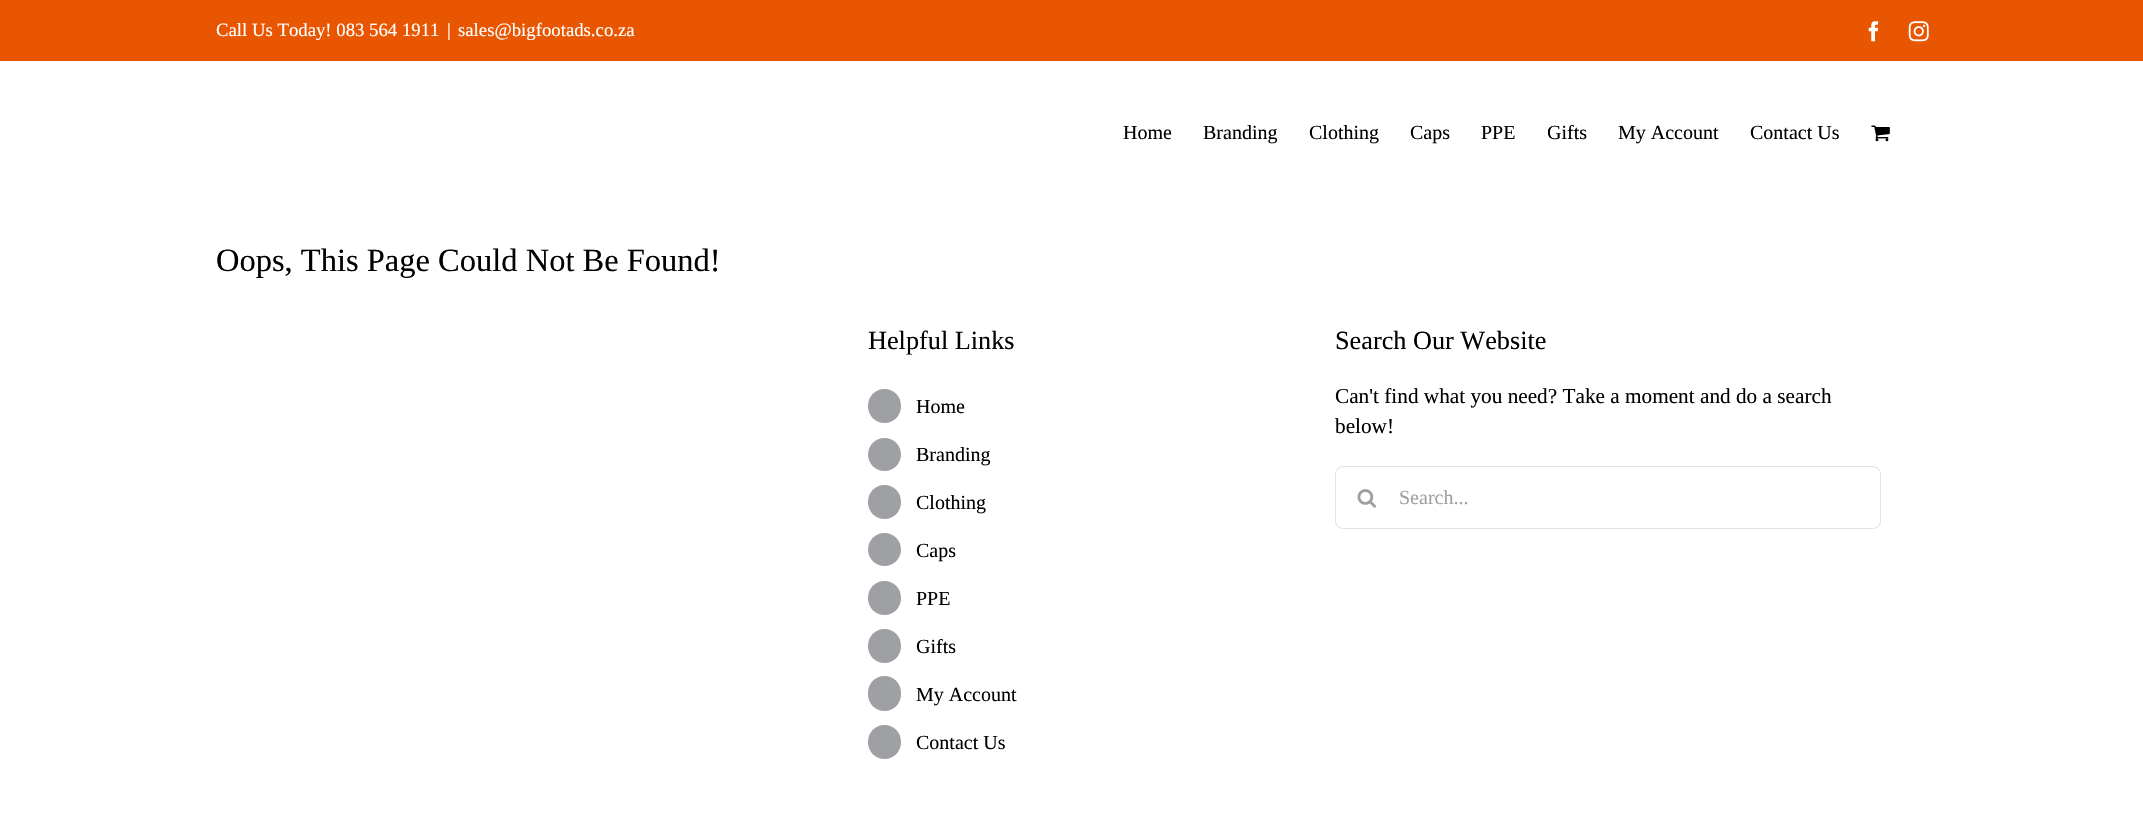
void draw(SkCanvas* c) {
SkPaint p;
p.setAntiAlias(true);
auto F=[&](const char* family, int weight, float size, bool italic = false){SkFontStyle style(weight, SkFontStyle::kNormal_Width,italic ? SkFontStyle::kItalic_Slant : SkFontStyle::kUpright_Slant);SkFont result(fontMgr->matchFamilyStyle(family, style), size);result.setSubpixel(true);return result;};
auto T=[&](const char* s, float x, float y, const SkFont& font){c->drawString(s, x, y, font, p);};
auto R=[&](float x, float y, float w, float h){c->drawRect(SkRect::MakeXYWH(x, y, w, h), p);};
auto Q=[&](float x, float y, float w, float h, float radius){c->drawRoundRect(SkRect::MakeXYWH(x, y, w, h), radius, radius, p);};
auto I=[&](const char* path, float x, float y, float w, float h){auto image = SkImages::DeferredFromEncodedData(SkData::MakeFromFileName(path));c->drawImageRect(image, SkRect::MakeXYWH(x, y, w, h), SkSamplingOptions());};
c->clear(0xffffffff);
p.setColor(0xffe85601);
R(0,0,2143,61);
auto f1 = F("Liberation Serif",400,18.75);
p.setColor(0xffffffff);
T("Call Us Today! 083 564 1911",216,36,f1);
T("|",447,36,f1);
T("sales@bigfootads.co.za",458,36,f1);
I("1.png",1868,21,11,21);
I("2.png",1908,21,21,21);
auto f2 = F("Liberation Serif",400,20);
p.setColor(0xff000000);
T("Home",1123,139,f2);
T("Branding",1203,139,f2);
T("Clothing",1309,139,f2);
T("Caps",1410,139,f2);
T("PPE",1481,139,f2);
c->save();
c->clipRect(SkRect::MakeXYWH(1548,74,71,117));
T("Gifts",1547,139,f2);
c->restore();
T("My Account",1618,139,f2);
T("Contact Us",1750,139,f2);
I("3.png",1871,125,19,17);
auto f3 = F("Liberation Serif",400,32.5);
T("Oops, This Page Could Not Be Found!",216,271,f3);
auto f4 = F("Liberation Serif",400,26.25);
T("Helpful Links",868,349,f4);
p.setColor(0xff9ea0a4);
Q(868,389,33,34,16.5);
p.setColor(0xff000000);
T("Home",916,413,f2);
p.setColor(0xff9ea0a4);
c->drawCircle(884.5,454.5,16.5,p);
p.setColor(0xff000000);
T("Branding",916,461,f2);
p.setColor(0xff9ea0a4);
Q(868,485,33,34,16.5);
p.setColor(0xff000000);
T("Clothing",916,509,f2);
p.setColor(0xff9ea0a4);
c->drawCircle(884.5,549.5,16.5,p);
p.setColor(0xff000000);
T("Caps",916,557,f2);
p.setColor(0xff9ea0a4);
Q(868,581,33,34,16.5);
p.setColor(0xff000000);
T("PPE",916,605,f2);
p.setColor(0xff9ea0a4);
Q(868,629,33,34,16.5);
p.setColor(0xff000000);
T("Gifts",916,653,f2);
p.setColor(0xff9ea0a4);
Q(868,676,33,35,16.5);
p.setColor(0xff000000);
T("My Account",916,701,f2);
p.setColor(0xff9ea0a4);
Q(868,725,33,34,16.5);
p.setColor(0xff000000);
T("Contact Us",916,749,f2);
T("Search Our Website",1335,349,f4);
auto f5 = F("Liberation Serif",400,21.25);
T("Can't find what you need? Take a moment and do a search",1335,403,f5);
T("below!",1335,433,f5);
p.setStroke(true);
p.setStrokeWidth(1);
p.setColor(0xffe2e2e2);
c->drawRoundRect(SkRect::MakeXYWH(1335.5,466.5,545,62),7.5,7.5,p);
I("4.png",1357,489,19,19);
p.setStroke(false);
p.setColor(0xff9ea0a4);
T("Search...",1399,504,f2);
}
